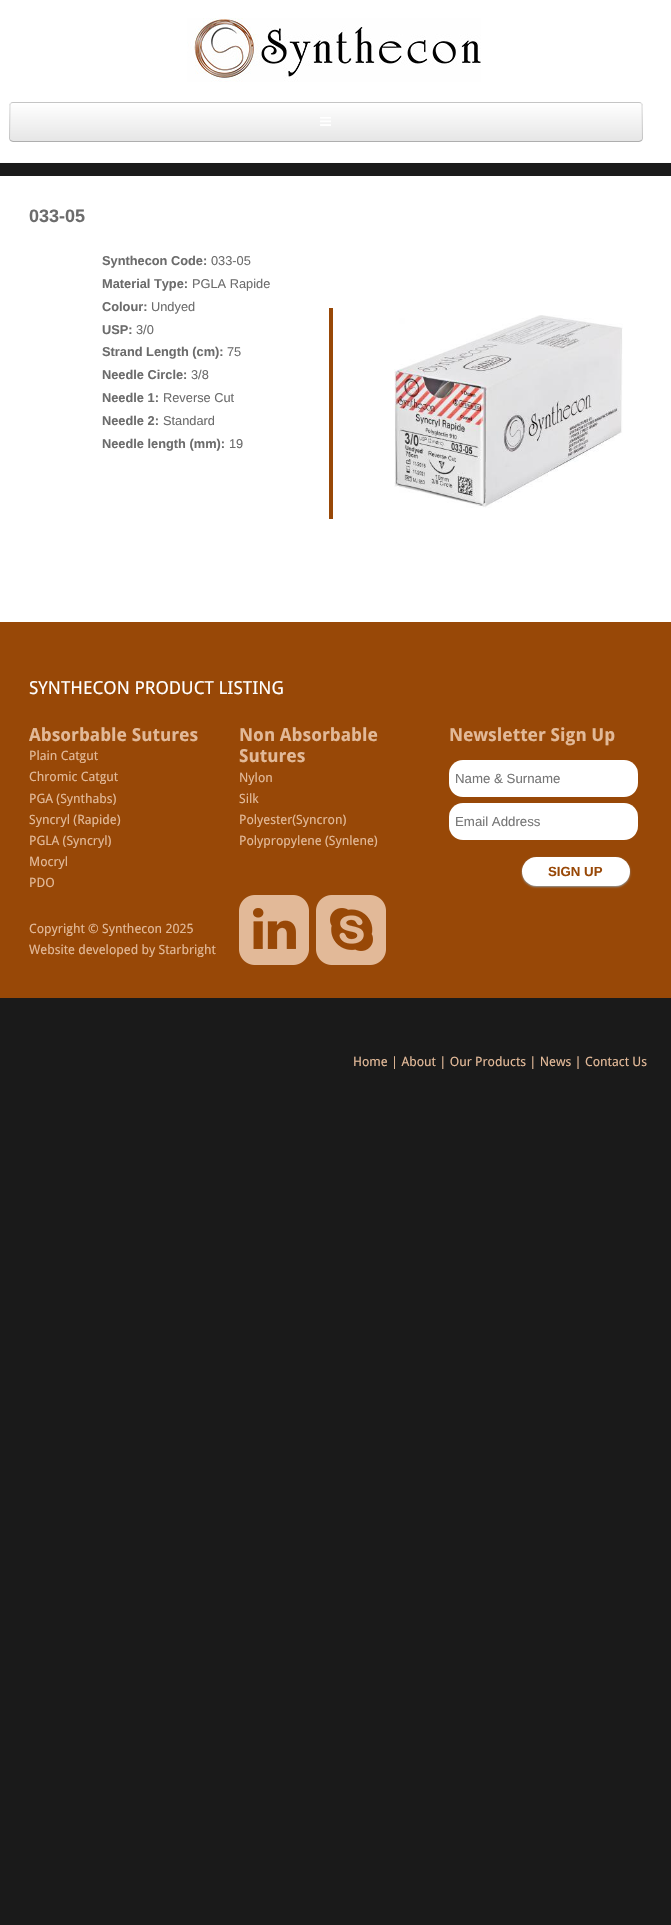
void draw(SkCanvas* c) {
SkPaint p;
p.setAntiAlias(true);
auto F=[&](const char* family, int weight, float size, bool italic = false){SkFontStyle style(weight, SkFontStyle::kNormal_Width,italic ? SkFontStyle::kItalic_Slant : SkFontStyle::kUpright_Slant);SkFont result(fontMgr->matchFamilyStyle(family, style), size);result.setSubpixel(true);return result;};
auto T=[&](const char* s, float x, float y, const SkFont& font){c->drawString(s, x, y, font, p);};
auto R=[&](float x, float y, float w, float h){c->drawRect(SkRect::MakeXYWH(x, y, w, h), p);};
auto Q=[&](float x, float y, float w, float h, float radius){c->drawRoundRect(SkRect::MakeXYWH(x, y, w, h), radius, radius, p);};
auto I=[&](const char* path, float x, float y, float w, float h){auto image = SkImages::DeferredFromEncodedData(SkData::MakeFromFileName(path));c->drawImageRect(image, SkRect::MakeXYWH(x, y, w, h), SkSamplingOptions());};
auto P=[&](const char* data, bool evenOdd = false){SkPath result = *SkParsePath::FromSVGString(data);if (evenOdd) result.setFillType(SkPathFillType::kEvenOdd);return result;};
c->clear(0xff1a1a1a);
p.setColor(0xffffffff);
R(0,0,671,162);
I("1.png",187,18,294,64);
p.setColor(0xffe8e8e8);
Q(9,102,634,40,4);
c->save();
c->clipPath(P("M13 102h626c2 0 4 2 4 4v32c0 2-2 4-4 4h-626c-2 0-4-2-4-4v-32c0-2 2-4 4-4z"),true);
{
const SkColor colors[] = {0xffffffff,0xffe6e6e6};
const float stops[] = {0,1};
const SkPoint ends[] = {{326,103}, {326,141}};
p.setShader(SkGradientShader::MakeLinear(ends, colors, stops, 2, SkTileMode::kClamp));
p.setAlpha(255);
}
R(9,103,634,38);
c->restore();
p.setStroke(true);
p.setStrokeWidth(1);
p.setShader(nullptr);
p.setColor(0x40000000);
c->drawPath(P("M641.5 140.5l-2.5 1h-626l-2.5-1"),p);
p.setColor(0x26000000);
c->drawPath(P("M10.5 140.5l-1-2l.5-34c.5-1 1.5-2 3-2h626c1.5 0 2.5 1 3 2l.5 34l-1 2"),p);
I("2.png",320,117,11,9);
p.setStroke(false);
p.setColor(0xfffcfcfc);
R(0,162,671,1);
p.setColor(0xffffffff);
R(0,176,671,446);
auto f1 = F("Liberation Sans",700,18);
p.setColor(0xff6c6c6c);
T("033-05",29,222,f1);
auto f2 = F("Liberation Sans",700,12.8);
T("Synthecon Code:",102,265,f2);
auto f3 = F("Liberation Sans",400,12.8);
T("033-05",211,265,f3);
T("Material Type:",102,288,f2);
T("PGLA Rapide",192,288,f3);
T("Colour:",102,311,f2);
T("Undyed",151,311,f3);
p.setColor(0xff984807);
R(329,308,4,211);
I("3.png",394,315,229,193);
p.setColor(0xff6c6c6c);
T("USP:",102,334,f2);
T("3/0",136,334,f3);
T("Strand Length (cm):",102,356,f2);
T("75",227,356,f3);
T("Needle Circle:",102,379,f2);
T("3/8",191,379,f3);
T("Needle 1:",102,402,f2);
T("Reverse Cut",163,402,f3);
T("Needle 2:",102,425,f2);
T("Standard",163,425,f3);
T("Needle length (mm):",102,448,f2);
T("19",229,448,f3);
p.setColor(0xff984807);
R(0,622,671,376);
auto f4 = F("Droid Sans",400,18);
p.setColor(0xffffffff);
T("SYNTHECON PRODUCT LISTING",29,694,f4);
auto f5 = F("Droid Sans",700,18);
p.setColor(0xffe2b998);
T("Absorbable Sutures",29,741,f5);
auto f6 = F("Droid Sans",400,12.8);
T("Plain Catgut",29,760,f6);
T("Chromic Catgut",29,781,f6);
T("PGA (Synthabs)",29,803,f6);
T("Syncryl (Rapide)",29,824,f6);
T("PGLA (Syncryl)",29,845,f6);
T("Mocryl",29,866,f6);
T("PDO",29,887,f6);
T("Copyright © Synthecon 2025",29,933,f6);
T("Website developed by Starbright",29,954,f6);
T("Non Absorbable",239,741,f5);
T("Sutures",239,762,f5);
T("Nylon",239,782,f6);
T("Silk",239,803,f6);
T("Polyester(Syncron)",239,824,f6);
T("Polypropylene (Synlene)",239,845,f6);
I("4.png",239,895,70,70);
I("5.png",316,895,70,70);
T("Newsletter Sign Up",449,741,f5);
p.setColor(0xffffffff);
Q(449,760,189,37,14);
auto f7 = F("Liberation Sans",400,13.25);
p.setColor(0xff757575);
T("Name & Surname",455,783,f7);
p.setColor(0xffffffff);
Q(449,803,189,37,14);
p.setColor(0xff757575);
T("Email Address",455,826,f7);
p.setColor(0xff939da2);
p.setMaskFilter(SkMaskFilter::MakeBlur(kNormal_SkBlurStyle, 1));
c->drawRoundRect(SkRect::MakeXYWH(522,858,108,29),14.5,14.5,p);
p.setMaskFilter(nullptr);
p.setColor(0xffffffff);
Q(522,857,108,29,14.5);
auto f8 = F("Liberation Sans",700,13.25);
p.setColor(0xff984807);
T("SIGN UP",548,876,f8);
p.setColor(0xffe2b998);
T("Home | About | Our Products | News | Contact Us",353,1066,f6);
}
